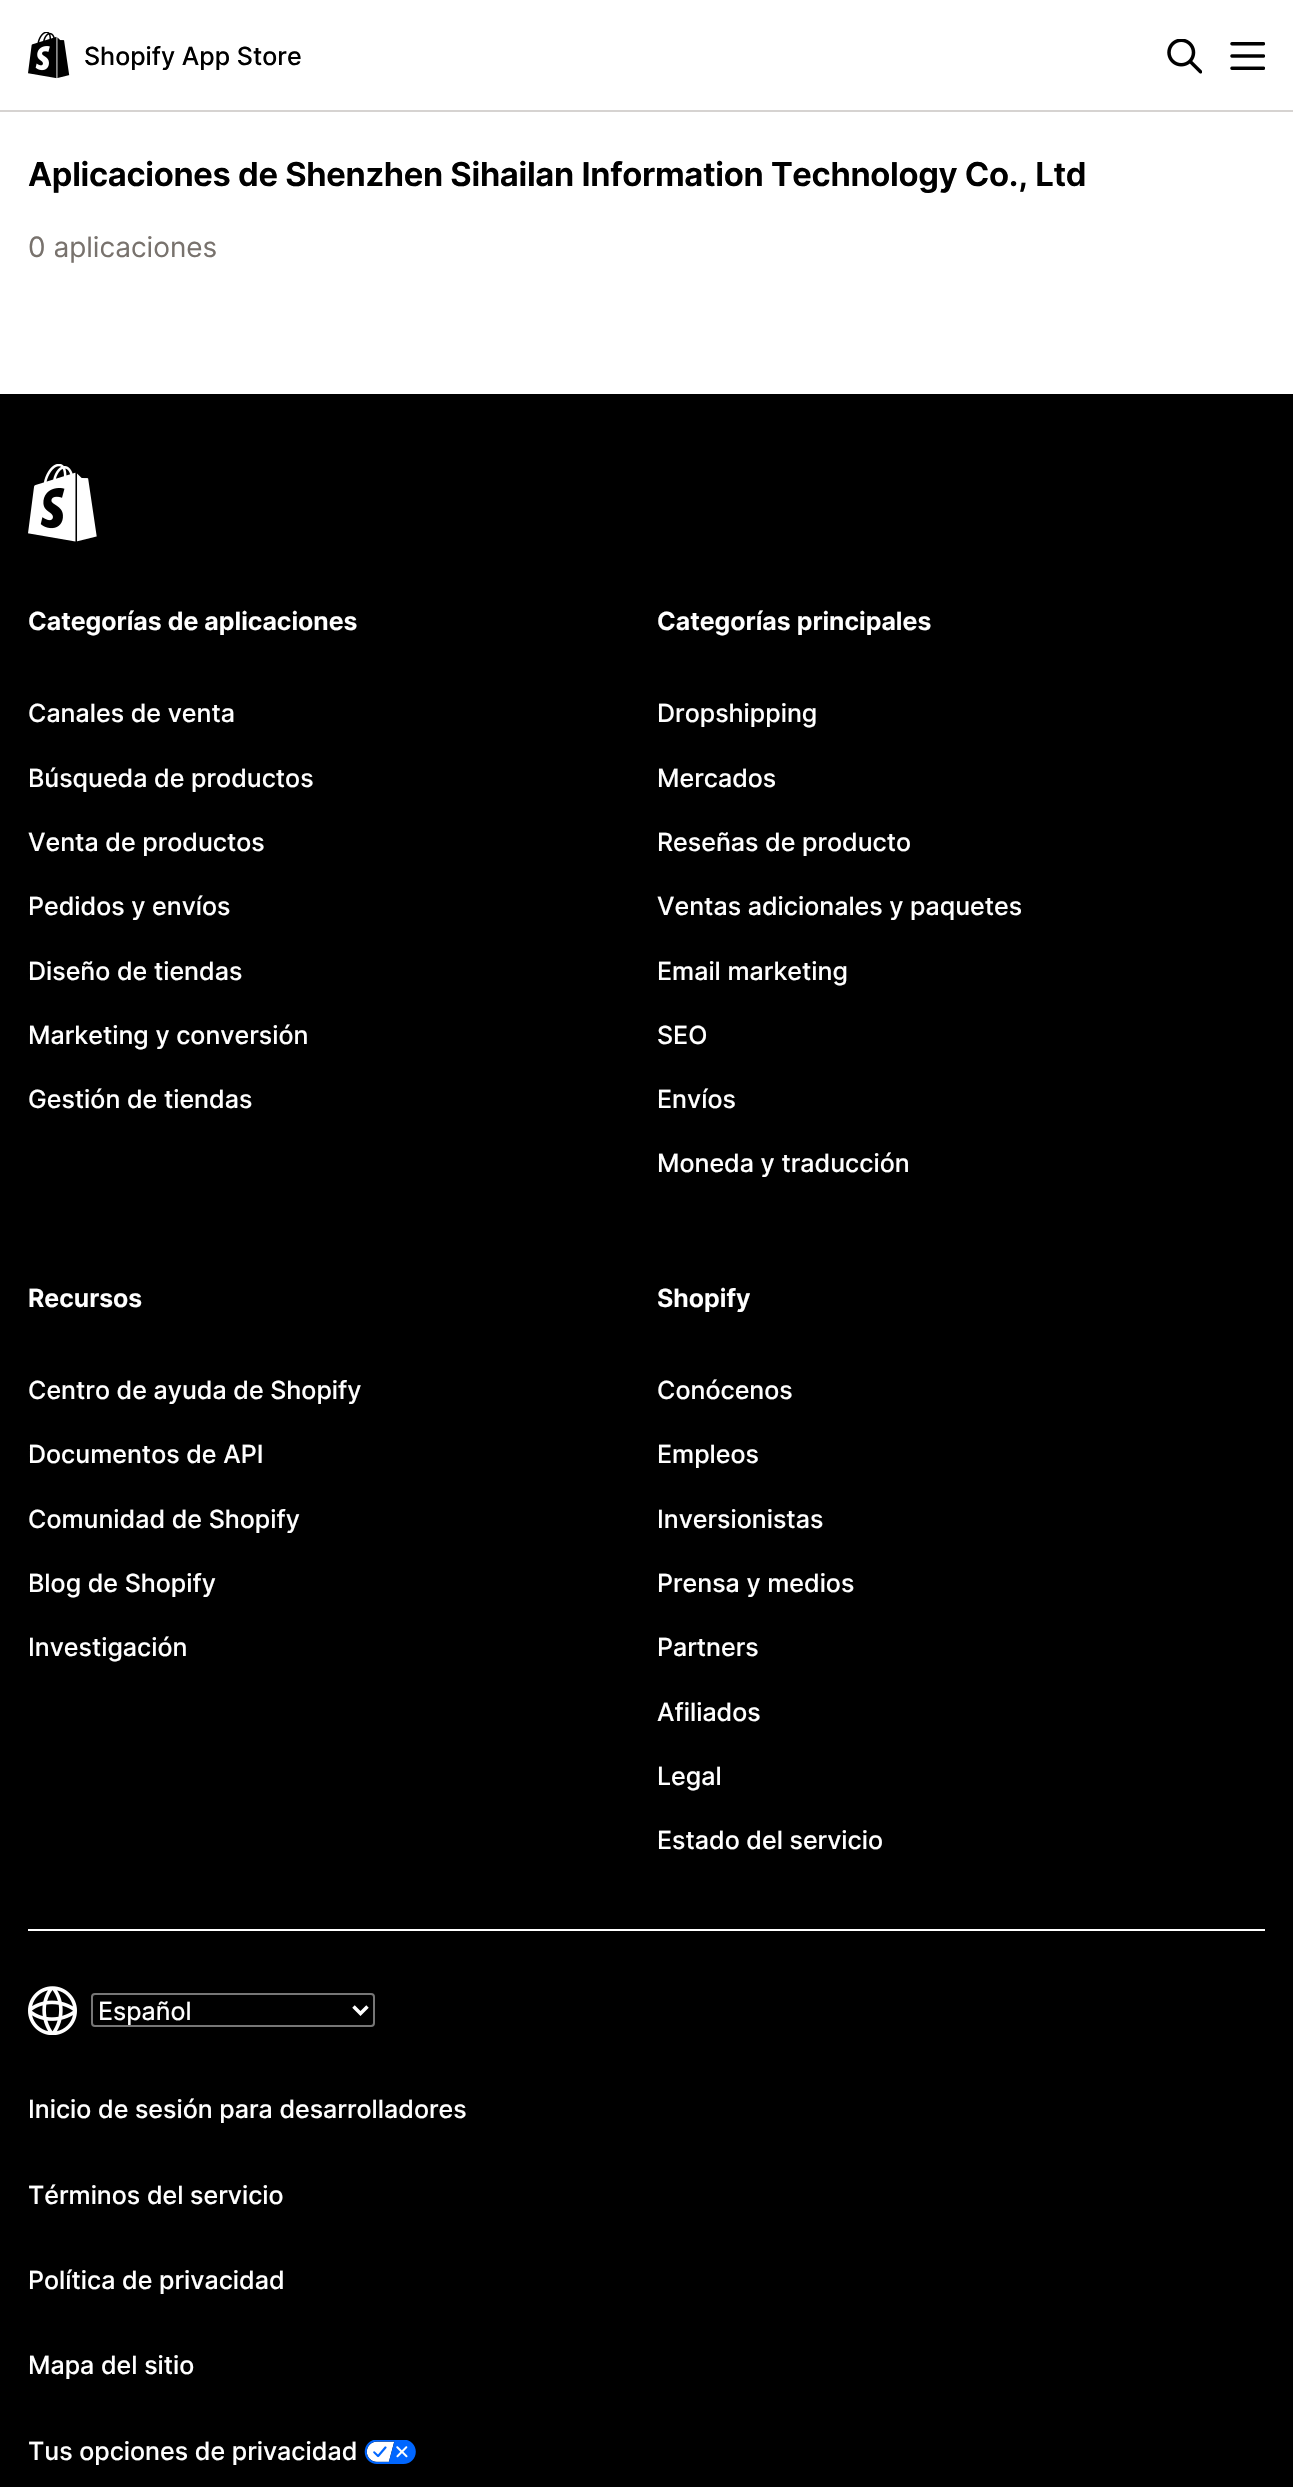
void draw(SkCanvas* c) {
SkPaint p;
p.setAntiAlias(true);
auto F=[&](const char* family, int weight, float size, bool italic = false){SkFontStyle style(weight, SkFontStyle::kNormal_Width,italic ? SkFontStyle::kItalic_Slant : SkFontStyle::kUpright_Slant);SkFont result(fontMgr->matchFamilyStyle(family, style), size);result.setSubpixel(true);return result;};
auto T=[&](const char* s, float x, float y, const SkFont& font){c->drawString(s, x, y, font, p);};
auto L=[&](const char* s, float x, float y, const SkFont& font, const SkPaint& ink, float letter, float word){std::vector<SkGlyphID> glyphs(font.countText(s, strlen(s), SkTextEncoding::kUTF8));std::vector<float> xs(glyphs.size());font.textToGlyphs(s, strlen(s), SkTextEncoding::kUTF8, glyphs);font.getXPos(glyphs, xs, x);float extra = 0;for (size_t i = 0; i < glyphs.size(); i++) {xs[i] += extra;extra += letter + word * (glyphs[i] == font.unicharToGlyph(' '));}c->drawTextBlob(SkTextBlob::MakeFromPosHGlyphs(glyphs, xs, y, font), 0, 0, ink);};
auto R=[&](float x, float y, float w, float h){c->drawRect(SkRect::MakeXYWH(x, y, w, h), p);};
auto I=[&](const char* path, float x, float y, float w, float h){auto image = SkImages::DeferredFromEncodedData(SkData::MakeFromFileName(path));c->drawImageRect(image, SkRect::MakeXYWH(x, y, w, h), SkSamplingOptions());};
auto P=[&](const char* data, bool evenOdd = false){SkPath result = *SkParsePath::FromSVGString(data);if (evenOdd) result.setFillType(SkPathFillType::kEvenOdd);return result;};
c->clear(0xffffffff);
p.setColor(0xffd6d3d1);
R(0,110,1293,2);
I("1.png",28,32,42,47);
auto f1 = F("Inter",500,25);
p.setColor(0xff000000);
T("Shopify App Store",84,65,f1);
I("2.png",1167,39,35,35);
I("3.png",1230,42,35,28);
auto f2 = F("Inter",600,32.85);
L("Aplicaciones de Shenzhen Sihailan Information Technology Co., Ltd",28,186,f2,p,-.33,0);
auto f3 = F("Inter",400,28);
p.setColor(0xff78726d);
T("0 aplicaciones",28,257,f3);
p.setColor(0xff000000);
R(0,394,1293,2093);
I("4.png",28,464,69,78);
auto f4 = F("Inter",600,25);
p.setColor(0xffffffff);
T("Categorías de aplicaciones",28,630,f4);
T("Canales de venta",28,722,f1);
T("Búsqueda de productos",28,787,f1);
T("Venta de productos",28,851,f1);
T("Pedidos y envíos",28,915,f1);
T("Diseño de tiendas",28,980,f1);
T("Marketing y conversión",28,1044,f1);
T("Gestión de tiendas",28,1108,f1);
T("Categorías principales",657,630,f4);
T("Dropshipping",657,722,f1);
T("Mercados",657,787,f1);
T("Reseñas de producto",657,851,f1);
T("Ventas adicionales y paquetes",657,915,f1);
T("Email marketing",657,980,f1);
T("SEO",657,1044,f1);
T("Envíos",657,1108,f1);
T("Moneda y traducción",657,1172,f1);
T("Recursos",28,1307,f4);
T("Centro de ayuda de Shopify",28,1399,f1);
T("Documentos de API",28,1463,f1);
T("Comunidad de Shopify",28,1528,f1);
T("Blog de Shopify",28,1592,f1);
T("Investigación",28,1656,f1);
T("Shopify",657,1307,f4);
T("Conócenos",657,1399,f1);
T("Empleos",657,1463,f1);
T("Inversionistas",657,1528,f1);
T("Prensa y medios",657,1592,f1);
T("Partners",657,1656,f1);
T("Afiliados",657,1721,f1);
T("Legal",657,1785,f1);
T("Estado del servicio",657,1849,f1);
R(28,1929,1237,2);
I("5.png",28,1986,49,49);
p.setStroke(true);
p.setStrokeWidth(2);
p.setColor(0xff767676);
c->drawRoundRect(SkRect::MakeXYWH(92,1994,282,32),3,3,p);
p.setStrokeWidth(3.5);
p.setColor(0xffffffff);
c->drawPath(P("M353.5 2006.5l7 7l7-7"),p);
auto f5 = F("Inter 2",400,25);
p.setStroke(false);
T("Español",98,2020,f5);
T("Inicio de sesión para desarrolladores",28,2118,f1);
T("Términos del servicio",28,2204,f1);
T("Política de privacidad",28,2289,f1);
T("Mapa del sitio",28,2374,f1);
T("Tus opciones de privacidad",28,2460,f1);
I("6.png",364,2440,52,24);
}
